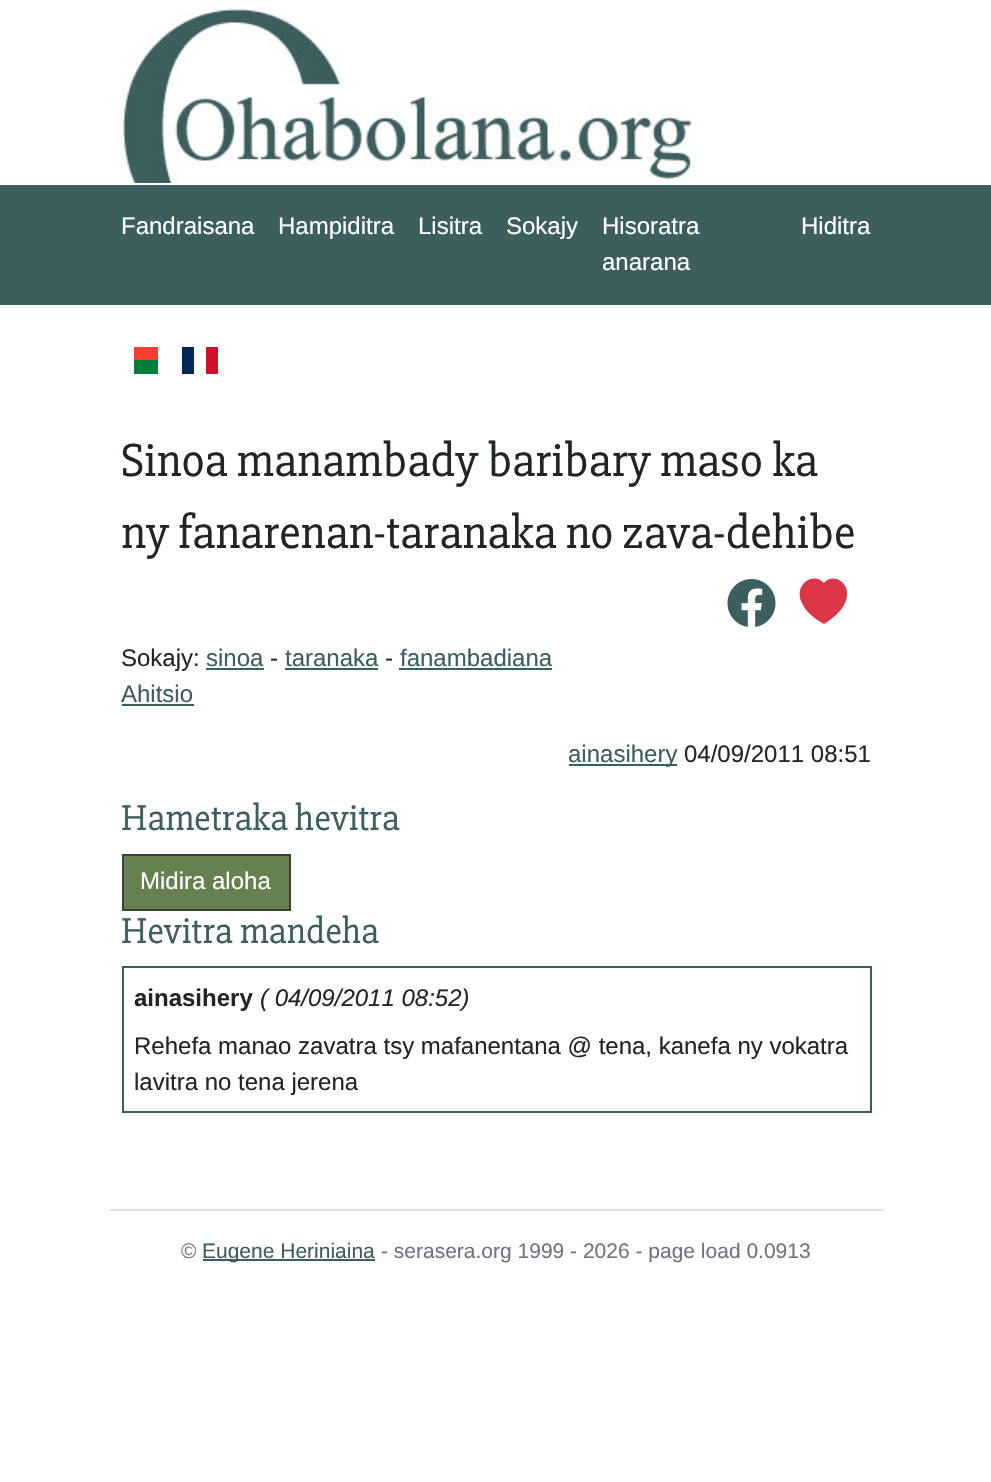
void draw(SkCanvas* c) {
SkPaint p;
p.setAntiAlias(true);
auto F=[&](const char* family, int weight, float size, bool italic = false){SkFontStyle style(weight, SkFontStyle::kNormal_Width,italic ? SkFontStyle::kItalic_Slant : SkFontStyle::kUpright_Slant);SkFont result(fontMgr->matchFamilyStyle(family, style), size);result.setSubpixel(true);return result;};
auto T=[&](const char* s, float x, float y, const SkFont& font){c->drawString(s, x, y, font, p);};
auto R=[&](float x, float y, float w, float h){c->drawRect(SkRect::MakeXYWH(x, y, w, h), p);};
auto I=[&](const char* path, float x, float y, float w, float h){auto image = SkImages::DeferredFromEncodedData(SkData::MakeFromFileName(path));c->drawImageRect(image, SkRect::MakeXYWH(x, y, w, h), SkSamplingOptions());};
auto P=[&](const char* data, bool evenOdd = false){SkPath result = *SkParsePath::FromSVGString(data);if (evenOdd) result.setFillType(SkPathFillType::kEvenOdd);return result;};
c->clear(0xffffffff);
I("1.png",121,0,576,183);
p.setColor(0xff3d5e5e);
R(0,185,991,120);
auto f1 = F("Liberation Sans",400,24);
p.setColor(0xffffffff);
T("Fandraisana",121,234,f1);
T("Hampiditra",278,234,f1);
T("Lisitra",418,234,f1);
T("Sokajy",506,234,f1);
T("Hisoratra",602,234,f1);
T("anarana",602,270,f1);
T("Hiditra",801,234,f1);
p.setColor(0xfffc3d32);
R(134,347,24,13);
p.setColor(0xff007e3a);
R(134,360,24,14);
p.setColor(0xff002654);
R(182,347,12,27);
p.setColor(0xffce1126);
R(206,347,12,27);
auto f2 = F("Slabo 27px",400,48);
p.setColor(0xff212529);
T("Sinoa manambady baribary maso ka",121,476,f2);
T("ny fanarenan-taranaka no zava-dehibe",121,548,f2);
I("2.png",727,579,49,48);
p.setColor(0xffdc3545);
c->drawPath(P("M824 583c10-12 30 2 21 20c-4 9-13 16-21 21c-9-5-18-12-22-21c-9-18 11-32 22-20z"),p);
p.setColor(0xff212529);
T("Sokajy:",121,666,f1);
p.setColor(0xff3d5e5e);
T("sinoa",206,666,f1);
R(206,668,58,2);
p.setColor(0xff212529);
T("-",270,666,f1);
p.setColor(0xff3d5e5e);
T("taranaka",285,666,f1);
R(285,668,93,2);
p.setColor(0xff212529);
T("-",385,666,f1);
p.setColor(0xff3d5e5e);
T("fanambadiana",400,666,f1);
R(399,668,153,2);
T("Ahitsio",121,702,f1);
R(122,704,72,2);
R(569,764,108,2);
T("ainasihery",568,762,f1);
p.setColor(0xff212529);
T("04/09/2011 08:51",684,762,f1);
auto f3 = F("Slabo 27px",400,37.25);
p.setColor(0xff3d5e5e);
T("Hametraka hevitra",121,830,f3);
p.setColor(0xff66804f);
c->drawRect(SkRect::MakeXYWH(123,855,167,55),p);
p.setStroke(true);
p.setStrokeWidth(2);
p.setColor(0xff37462b);
c->drawRect(SkRect::MakeXYWH(123,855,167,55),p);
p.setStroke(false);
p.setColor(0xffffffff);
T("Midira aloha",140,889,f1);
p.setColor(0xff3d5e5e);
T("Hevitra mandeha",121,943,f3);
p.setStroke(true);
c->drawRect(SkRect::MakeXYWH(123,967,748,145),p);
auto f4 = F("Liberation Sans",700,24);
p.setStroke(false);
p.setColor(0xff212529);
T("ainasihery",134,1006,f4);
auto f5 = F("Liberation Sans",400,24,true);
T("( 04/09/2011 08:52)",260,1006,f5);
T("Rehefa manao zavatra tsy mafanentana @ tena, kanefa ny vokatra",134,1054,f1);
T("lavitra no tena jerena",134,1090,f1);
p.setColor(0xffdee2e6);
R(110,1209,774,2);
auto f6 = F("Liberation Sans",400,21);
p.setColor(0xff6c757d);
T("©",181,1258,f6);
p.setColor(0xff3d5e5e);
R(203,1259,172,2);
T("Eugene Heriniaina",202,1258,f6);
p.setColor(0xff6c757d);
T("- serasera.org 1999 - 2026 - page load 0.0913",381,1258,f6);
}
